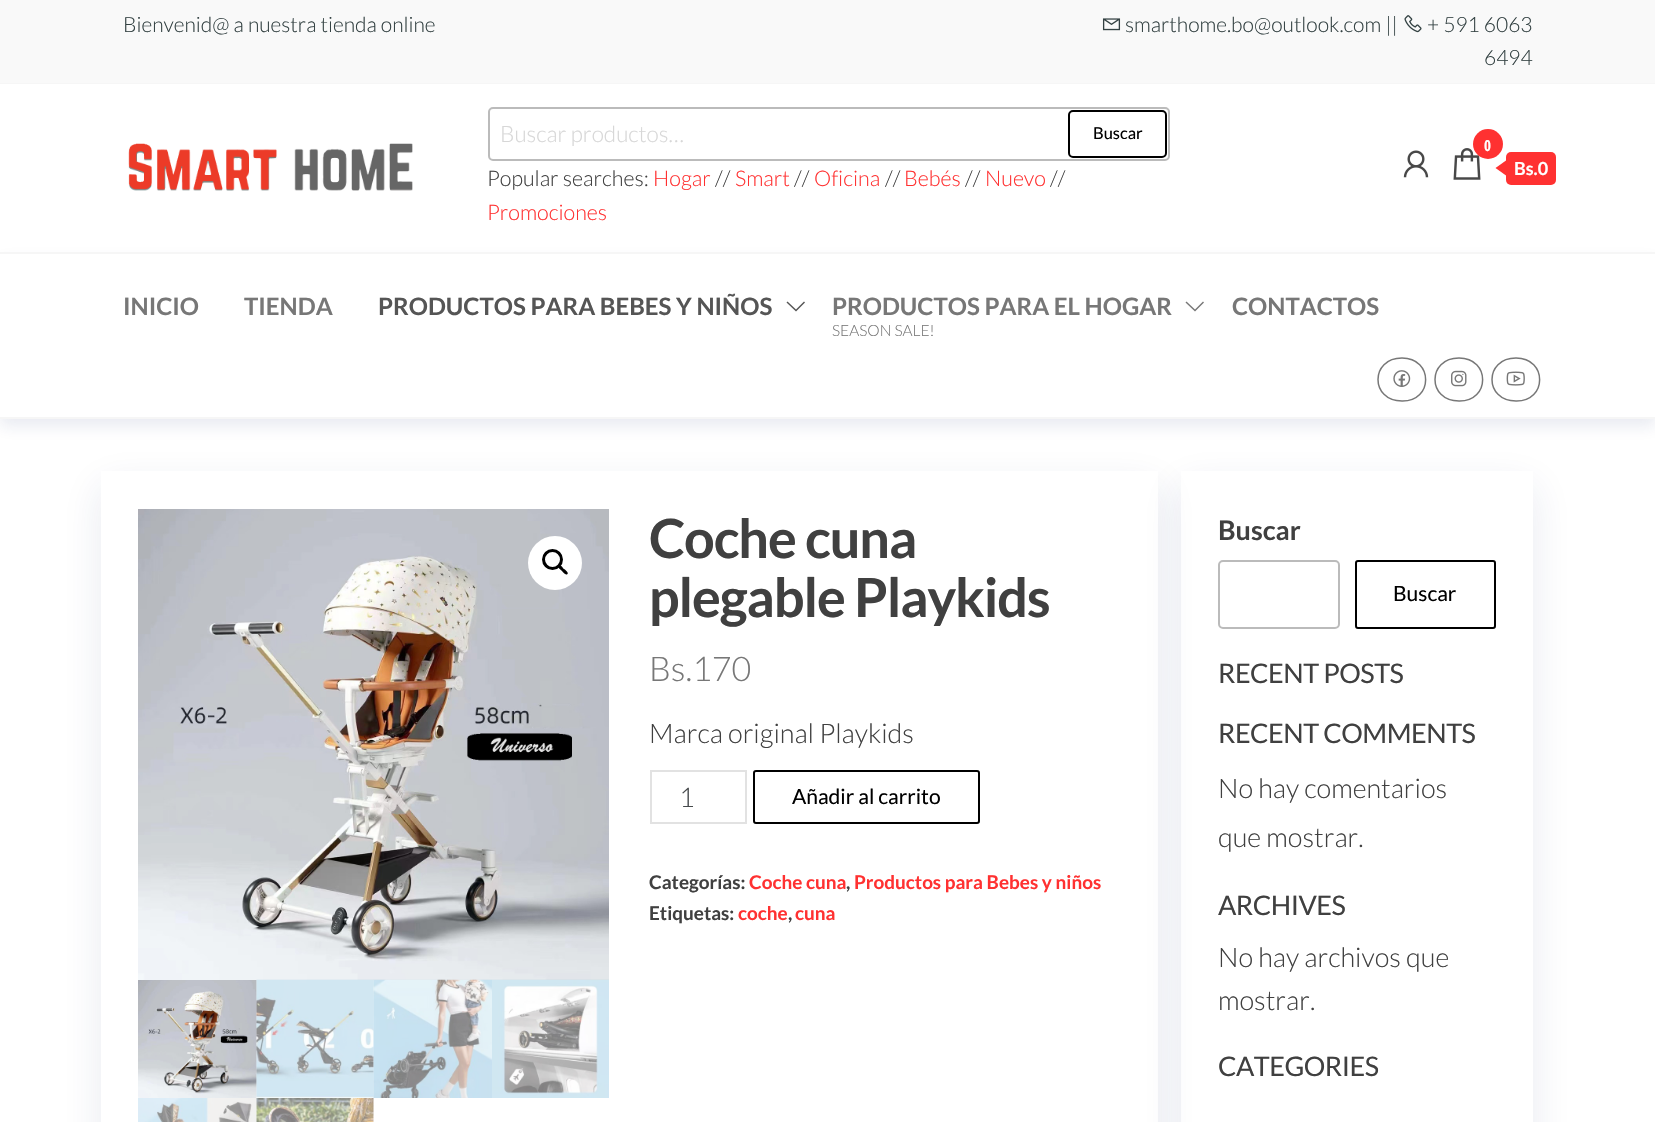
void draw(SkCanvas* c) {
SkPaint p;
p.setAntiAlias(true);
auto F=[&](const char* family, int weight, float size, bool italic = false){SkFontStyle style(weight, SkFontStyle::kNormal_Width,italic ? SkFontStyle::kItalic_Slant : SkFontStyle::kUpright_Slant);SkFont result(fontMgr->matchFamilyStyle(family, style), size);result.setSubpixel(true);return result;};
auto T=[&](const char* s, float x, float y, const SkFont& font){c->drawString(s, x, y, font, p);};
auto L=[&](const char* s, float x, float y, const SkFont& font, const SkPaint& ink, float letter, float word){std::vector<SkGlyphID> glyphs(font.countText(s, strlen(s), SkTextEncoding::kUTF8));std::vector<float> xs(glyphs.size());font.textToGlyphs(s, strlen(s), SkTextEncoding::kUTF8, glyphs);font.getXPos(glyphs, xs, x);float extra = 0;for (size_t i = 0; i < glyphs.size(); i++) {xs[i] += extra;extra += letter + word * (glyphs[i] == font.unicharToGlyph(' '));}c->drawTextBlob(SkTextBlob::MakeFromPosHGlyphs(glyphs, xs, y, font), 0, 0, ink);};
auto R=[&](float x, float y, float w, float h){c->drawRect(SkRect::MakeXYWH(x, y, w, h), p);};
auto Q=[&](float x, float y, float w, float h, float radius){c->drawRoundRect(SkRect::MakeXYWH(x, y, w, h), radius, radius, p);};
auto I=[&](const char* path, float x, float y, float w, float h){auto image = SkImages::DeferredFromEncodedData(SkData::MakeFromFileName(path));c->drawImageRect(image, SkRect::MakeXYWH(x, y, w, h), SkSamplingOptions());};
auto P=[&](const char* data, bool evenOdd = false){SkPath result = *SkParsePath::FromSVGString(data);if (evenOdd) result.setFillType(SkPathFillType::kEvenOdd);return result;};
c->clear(0xffffffff);
p.setColor(0xfff9f9f9);
R(0,0,1655,83);
p.setColor(0xfff6f6f6);
R(0,83,1655,1);
auto f1 = F("Lato",300,21);
p.setColor(0xff334142);
T("Bienvenid@ a nuestra tienda online",123,32,f1);
I("1.png",1102,18,19,13);
T("smarthome.bo@outlook.com ||",1125,32,f1);
I("2.png",1404,15,18,18);
T("+ 591 6063",1427,32,f1);
T("6494",1484,65,f1);
p.setColor(0x1a192d78);
p.setMaskFilter(SkMaskFilter::MakeBlur(kNormal_SkBlurStyle, 7.5));
c->drawRect(SkRect::MakeXYWH(0,261,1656,165),p);
p.setMaskFilter(nullptr);
p.setColor(0xfff6f6f6);
R(0,252,1655,2);
I("3.png",128,143,285,48);
p.setStroke(true);
p.setStrokeWidth(2);
p.setColor(0xffbbbbbb);
c->drawRoundRect(SkRect::MakeXYWH(489,108,680,52),4,4,p);
auto f2 = F("Lato",300,22.5);
p.setStroke(false);
p.setColor(0xffd7d7d7);
T("Buscar productos…",500,142,f2);
p.setStroke(true);
p.setColor(0xff000000);
c->drawRoundRect(SkRect::MakeXYWH(1069,111,97,46),4,4,p);
auto f3 = F("Lato",400,16.5);
p.setStroke(false);
T("Buscar",1093,139,f3);
auto f4 = F("Lato",300,21.5);
p.setColor(0xff404040);
T("Popular searches:",487,186,f4);
p.setColor(0xffff3131);
T("Hogar",653,186,f4);
p.setColor(0xff404040);
T("//",715,186,f4);
p.setColor(0xffff3131);
T("Smart",735,186,f4);
p.setColor(0xff404040);
T("//",794,186,f4);
p.setColor(0xffff3131);
T("Oficina",814,186,f4);
p.setColor(0xff404040);
T("//",885,186,f4);
p.setColor(0xffff3131);
T("Bebés",904,186,f4);
p.setColor(0xff404040);
T("//",965,186,f4);
p.setColor(0xffff3131);
T("Nuevo",985,186,f4);
p.setColor(0xff404040);
T("//",1050,186,f4);
p.setColor(0xffff3131);
T("Promociones",487,220,f4);
I("4.png",1403,150,26,28);
I("5.png",1453,148,28,32);
c->drawCircle(1488,144,15,p);
auto f5 = F("Open Sans Condensed",700,15);
p.setColor(0xffffffff);
T("0",1484,151,f5);
p.setColor(0xffff3131);
Q(1506,152,50,33,5);
c->drawPath(P("M1506 160.5v15l-10.5-7.5z"),p);
auto f6 = F("Lato",700,18);
p.setColor(0xffffffff);
T("Bs.0",1514,175,f6);
R(0,254,1655,163);
p.setColor(0xfff6f6f6);
R(0,417,1655,2);
auto f7 = F("Lato",700,24);
p.setColor(0xff777777);
T("INICIO",123,315,f7);
T("TIENDA",244,315,f7);
p.setColor(0xff555555);
T("PRODUCTOS PARA BEBES Y NIÑOS",378,315,f7);
c->drawPath(P("M787.5 301.5l-1 1l9.5 9l9-9l-1-1l-8 8z"),p);
p.setColor(0xff777777);
T("PRODUCTOS PARA EL HOGAR",832,315,f7);
c->drawPath(P("M1186.5 301.5l-1 1l9.5 9l9-9l-1-1l-8 8z"),p);
auto f8 = F("Lato",300,15.5);
T("SEASON SALE!",832,336,f8);
T("CONTACTOS",1232,315,f7);
p.setStroke(true);
p.setStrokeWidth(1.5);
c->drawPath(P("M1402 358c31.5 0 31.5 43.5 0 43c-32 0-32-43 0-43z"),p);
I("6.png",1393,370,18,17);
c->drawPath(P("M1459 358c31.5 0 31.5 43.5 0 43c-32 0-32-43 0-43z"),p);
I("7.png",1451,370,16,17);
c->drawPath(P("M1516 358c31.5 0 31.5 43.5 0 43c-32 0-32-43 0-43z"),p);
I("8.png",1506,371,19,15);
c->save();
c->clipPath(P("M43 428h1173v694h-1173zm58 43h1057v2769h-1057z",true),true);
p.setStroke(false);
p.setColor(0x1a192d6e);
p.setMaskFilter(SkMaskFilter::MakeBlur(kNormal_SkBlurStyle, 19));
c->drawRect(SkRect::MakeXYWH(101,486,1057,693),p);
p.setMaskFilter(nullptr);
c->restore();
I("9.png",138,509,471,471);
p.setColor(0xffffffff);
c->drawCircle(555,563,27,p);
p.setStroke(true);
p.setStrokeWidth(3);
p.setColor(0xff000000);
c->drawCircle(552.5,559.5,9,p);
p.setStroke(false);
c->drawPath(P("M559 565.5c1.5-1.5 4 2.5 5 3.5c1 .5 5 3.5 3.5 5c-2 2-4.5-2-5.5-3c-1-1-5-3.5-3-5.5z"),p);
I("10.png",138,980,119,118);
I("11.png",256,979,118,119);
I("12.png",373,979,119,119);
I("13.png",492,979,117,119);
I("14.png",138,1098,119,24);
I("15.png",256,1098,118,24);
auto f9 = F("Lato",700,54);
p.setColor(0xff404040);
L("Coche cuna",649,558,f9,p,-1.1,0);
L("plegable Playkids",649,617,f9,p,-1.1,0);
auto f10 = F("Lato",300,34);
p.setColor(0xff777777);
T("Bs.170",649,681,f10);
auto f11 = F("Lato",300,27);
p.setColor(0xff404040);
T("Marca original Playkids",649,743,f11);
p.setStroke(true);
p.setStrokeWidth(2);
p.setColor(0xffe2e2e2);
c->drawRect(SkRect::MakeXYWH(651,771,95,52),p);
p.setStroke(false);
p.setColor(0xff464a4c);
T("1",679,807,f11);
p.setStroke(true);
p.setColor(0xff000000);
c->drawRoundRect(SkRect::MakeXYWH(754,771,225,52),2,2,p);
auto f12 = F("Lato",400,21);
p.setStroke(false);
T("Añadir al carrito",792,804,f12);
auto f13 = F("Lato",700,18.9);
p.setColor(0xff404040);
T("Categorías:",649,889,f13);
p.setColor(0xffff3131);
T("Coche cuna",749,889,f13);
p.setColor(0xff404040);
T(",",846,889,f13);
p.setColor(0xffff3131);
T("Productos para Bebes y niños",854,889,f13);
p.setColor(0xff404040);
T("Etiquetas:",649,920,f13);
p.setColor(0xffff3131);
T("coche",738,920,f13);
p.setColor(0xff404040);
T(",",788,920,f13);
p.setColor(0xffff3131);
T("cuna",795,920,f13);
c->save();
c->clipPath(P("M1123 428h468v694h-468zm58 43h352v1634h-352z",true),true);
p.setColor(0x1a1c2d71);
p.setMaskFilter(SkMaskFilter::MakeBlur(kNormal_SkBlurStyle, 19));
c->drawRect(SkRect::MakeXYWH(1181,486,352,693),p);
p.setMaskFilter(nullptr);
c->restore();
auto f14 = F("Lato",700,27);
p.setColor(0xff404040);
T("Buscar",1218,540,f14);
p.setStroke(true);
p.setColor(0xffbbbbbb);
c->drawRoundRect(SkRect::MakeXYWH(1219,561,120,67),4,4,p);
p.setColor(0xff000000);
c->drawRoundRect(SkRect::MakeXYWH(1356,561,139,67),2,2,p);
p.setStroke(false);
T("Buscar",1393,601,f12);
auto f15 = F("Lato",400,27);
p.setColor(0xff404040);
L("RECENT POSTS",1218,683,f15,p,-.5,0);
L("RECENT COMMENTS",1218,743,f15,p,-.5,0);
T("No hay comentarios",1218,798,f11);
T("que mostrar.",1218,847,f11);
L("ARCHIVES",1218,915,f15,p,-.5,0);
T("No hay archivos que",1218,967,f11);
T("mostrar.",1218,1010,f11);
L("CATEGORIES",1218,1076,f15,p,-.5,0);
}
